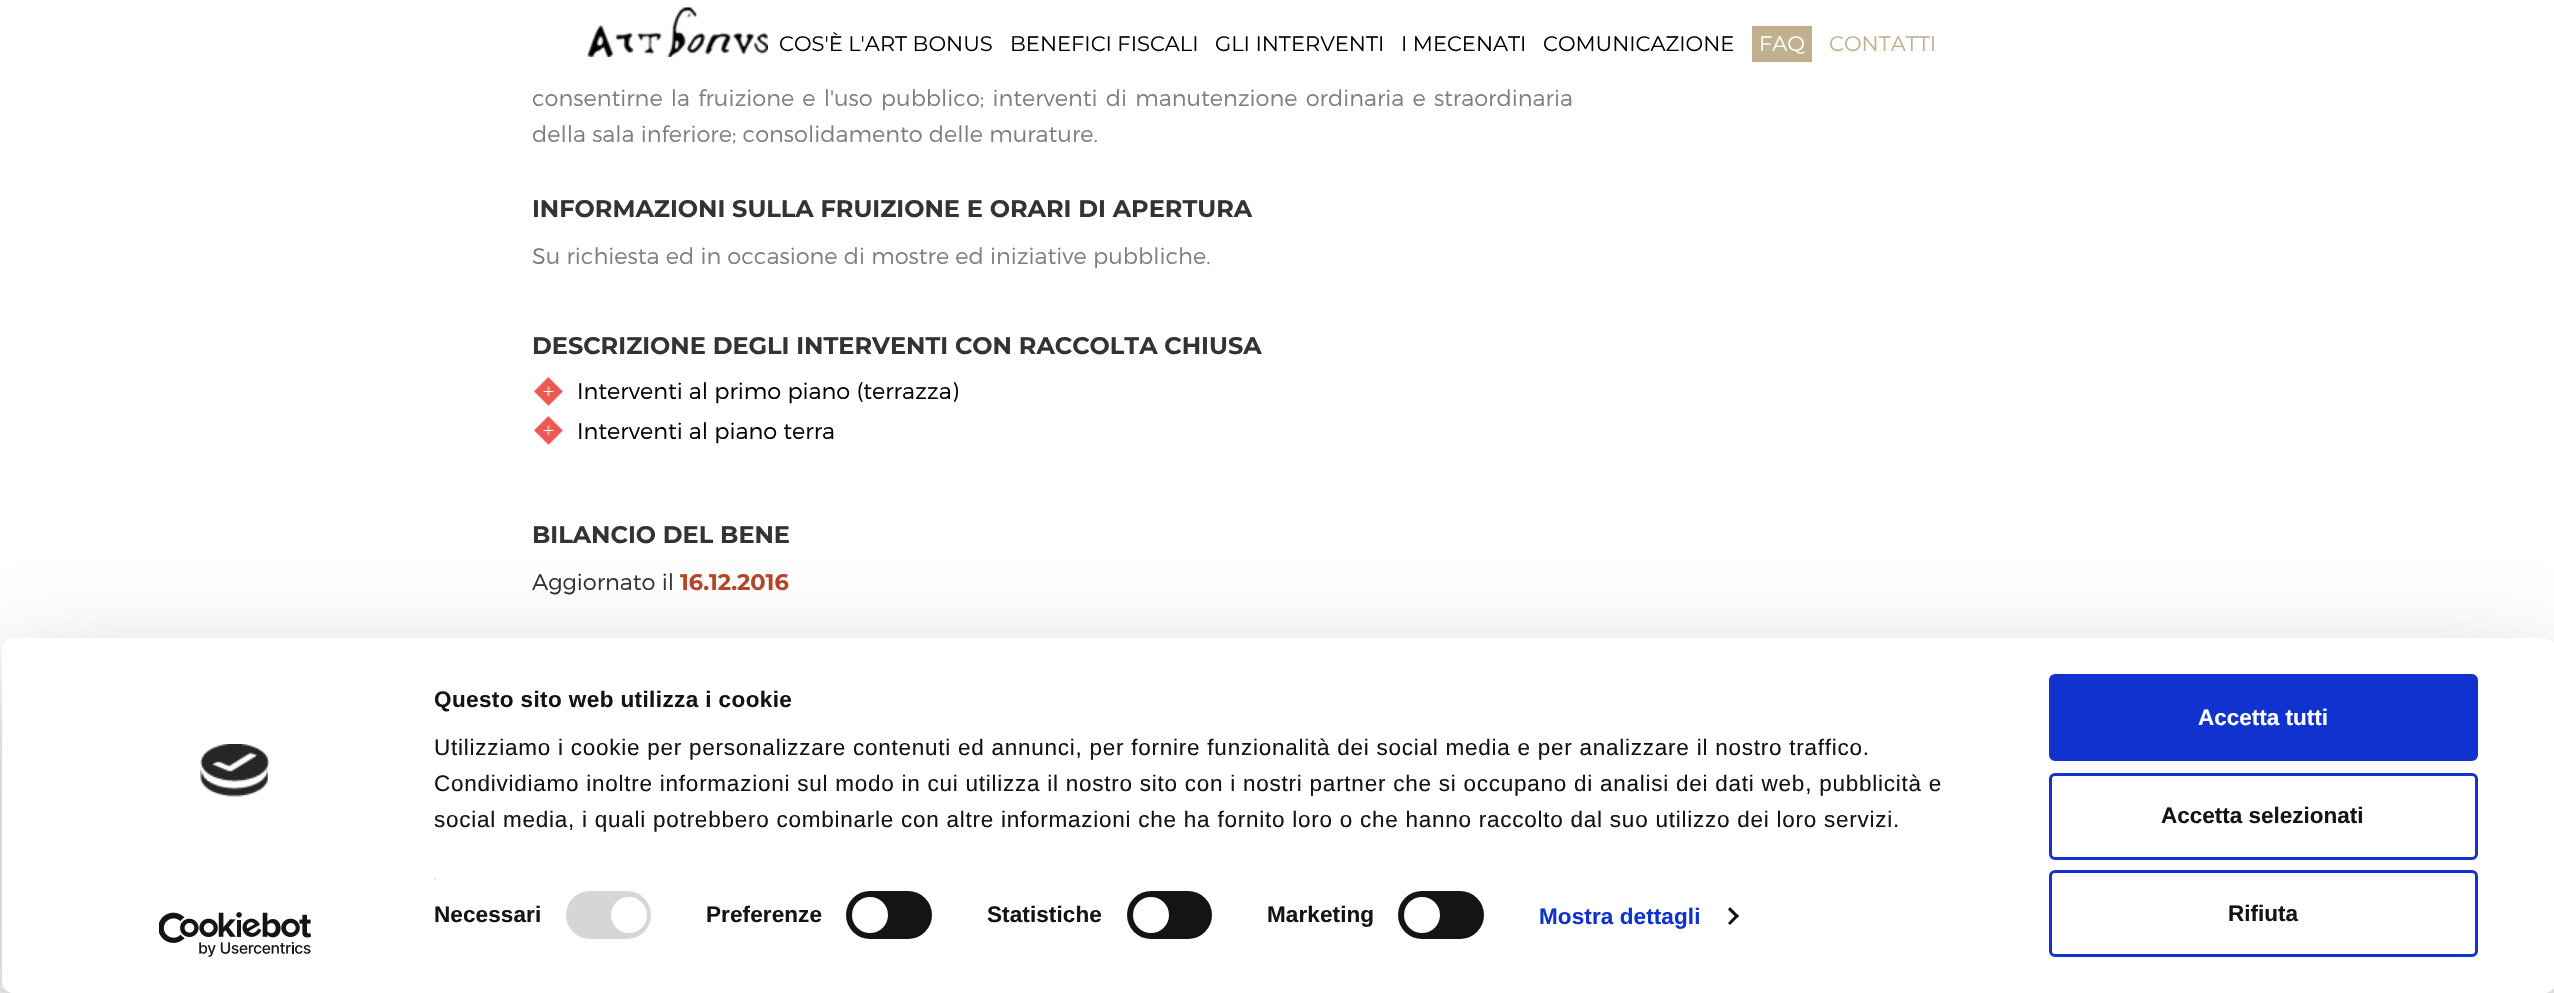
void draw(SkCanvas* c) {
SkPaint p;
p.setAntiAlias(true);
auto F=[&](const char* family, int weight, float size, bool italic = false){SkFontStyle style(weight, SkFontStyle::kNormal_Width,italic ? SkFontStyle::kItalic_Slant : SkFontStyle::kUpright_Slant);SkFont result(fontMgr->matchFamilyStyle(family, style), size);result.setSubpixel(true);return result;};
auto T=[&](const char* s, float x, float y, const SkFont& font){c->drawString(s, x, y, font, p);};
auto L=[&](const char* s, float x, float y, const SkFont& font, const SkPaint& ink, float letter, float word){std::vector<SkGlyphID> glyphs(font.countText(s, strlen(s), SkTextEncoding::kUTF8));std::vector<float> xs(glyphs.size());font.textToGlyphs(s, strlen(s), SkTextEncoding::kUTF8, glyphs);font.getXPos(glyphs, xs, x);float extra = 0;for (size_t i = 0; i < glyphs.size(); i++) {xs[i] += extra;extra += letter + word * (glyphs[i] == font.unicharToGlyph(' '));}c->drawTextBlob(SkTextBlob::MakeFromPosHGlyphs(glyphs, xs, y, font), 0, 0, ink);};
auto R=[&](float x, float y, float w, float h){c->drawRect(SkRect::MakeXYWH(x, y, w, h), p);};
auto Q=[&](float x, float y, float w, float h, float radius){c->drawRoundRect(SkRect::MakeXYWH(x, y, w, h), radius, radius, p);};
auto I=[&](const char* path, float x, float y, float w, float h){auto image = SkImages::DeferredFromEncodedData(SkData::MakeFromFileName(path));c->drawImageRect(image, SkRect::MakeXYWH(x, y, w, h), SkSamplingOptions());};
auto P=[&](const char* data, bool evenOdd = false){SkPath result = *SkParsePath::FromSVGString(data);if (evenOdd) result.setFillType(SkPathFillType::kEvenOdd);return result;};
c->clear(0xffffffff);
I("1.png",587,7,181,50);
auto f1 = F("Montserrat",400,21);
p.setColor(0xff000000);
T("COS'È L'ART BONUS",779,51,f1);
T("BENEFICI FISCALI",1010,51,f1);
T("GLI INTERVENTI",1215,51,f1);
T("I MECENATI",1401,51,f1);
T("COMUNICAZIONE",1543,51,f1);
p.setColor(0xffc1b08e);
R(1752,26,60,36);
p.setColor(0xffffffff);
T("FAQ",1759,51,f1);
p.setColor(0xffc1b08e);
T("CONTATTI",1829,51,f1);
auto f2 = F("Montserrat",300,22.5);
p.setColor(0xff807f7f);
L("consentirne la fruizione e l'uso pubblico; interventi di manutenzione ordinaria e straordinaria",532,106,f2,p,0,2);
T("della sala inferiore; consolidamento delle murature.",532,142,f2);
auto f3 = F("Montserrat",700,24);
p.setColor(0xff333333);
T("INFORMAZIONI SULLA FRUIZIONE E ORARI DI APERTURA",532,217,f3);
p.setColor(0xff807f7f);
T("Su richiesta ed in occasione di mostre ed iniziative pubbliche.",532,264,f2);
p.setColor(0xff333333);
T("DESCRIZIONE DEGLI INTERVENTI CON RACCOLTA CHIUSA",532,354,f3);
I("2.png",533,377,30,29);
p.setColor(0xff000000);
T("Interventi al primo piano (terrazza)",577,399,f2);
I("2.png",533,416,30,29);
T("Interventi al piano terra",577,439,f2);
p.setColor(0xff333333);
T("BILANCIO DEL BENE",532,543,f3);
T("Aggiornato il",532,590,f2);
auto f4 = F("Montserrat",700,22.5);
p.setColor(0xffb9442b);
T("16.12.2016",680,590,f4);
c->save();
c->clipPath(P("M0 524h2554v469h-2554zm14 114h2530c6.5 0 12 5.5 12 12v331c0 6.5-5.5 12-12 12h-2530c-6.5 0-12-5.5-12-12v-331c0-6.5 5.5-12 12-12z",true),true);
p.setColor(0x4d000000);
p.setMaskFilter(SkMaskFilter::MakeBlur(kNormal_SkBlurStyle, 52.5));
c->drawRoundRect(SkRect::MakeXYWH(2,683,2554,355),12,12,p);
p.setMaskFilter(nullptr);
c->restore();
p.setColor(0xffffffff);
Q(2,638,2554,355,12);
I("3.png",200,744,70,53);
I("4.png",159,912,153,45);
auto f5 = F("Liberation Sans",700,22.5);
p.setColor(0xff141414);
L("Questo sito web utilizza i cookie",434,707,f5,p,.4,0);
auto f6 = F("Liberation Sans",400,22.5);
L("Utilizziamo i cookie per personalizzare contenuti ed annunci, per fornire funzionalità dei social media e per analizzare il nostro traffico.",434,755,f6,p,.75,0);
L("Condividiamo inoltre informazioni sul modo in cui utilizza il nostro sito con i nostri partner che si occupano di analisi dei dati web, pubblicità e",434,791,f6,p,.75,0);
L("social media, i quali potrebbero combinarle con altre informazioni che ha fornito loro o che hanno raccolto dal suo utilizzo dei loro servizi.",434,827,f6,p,.75,0);
p.setColor(0xffe5e5e5);
R(434,878,2,2);
p.setColor(0xff141414);
L("Necessari",434,922,f5,p,.1,0);
p.setColor(0xffd6d6d6);
Q(566,891,85,48,24);
p.setColor(0xffffffff);
c->drawCircle(629,915,18,p);
p.setColor(0xff141414);
L("Preferenze",706,922,f5,p,.1,0);
Q(846,891,86,48,24);
p.setColor(0xffffffff);
c->drawCircle(870,915,18,p);
p.setColor(0xff141414);
L("Statistiche",987,922,f5,p,.1,0);
Q(1127,891,85,48,24);
p.setColor(0xffffffff);
c->drawCircle(1151,915,18,p);
p.setColor(0xff141414);
L("Marketing",1267,922,f5,p,.1,0);
Q(1398,891,86,48,24);
p.setColor(0xffffffff);
c->drawCircle(1422,915,18,p);
p.setColor(0xff1032cf);
L("Mostra dettagli",1539,924,f5,p,.1,0);
p.setColor(0xff141414);
c->drawPath(P("M1730 907l9 9l-2.5 2l-8.5-8.5z"),p);
c->drawPath(P("M1736.5 914l2.5 2l-9 9l-2-2z"),p);
p.setColor(0xff1032cf);
c->drawRoundRect(SkRect::MakeXYWH(2050.5,675.5,426,84),4.5,4.5,p);
p.setStroke(true);
p.setStrokeWidth(3);
c->drawRoundRect(SkRect::MakeXYWH(2050.5,675.5,426,84),4.5,4.5,p);
p.setStroke(false);
p.setColor(0xffffffff);
T("Accetta tutti",2198,725,f5);
p.setStroke(true);
p.setColor(0xff1032cf);
c->drawRoundRect(SkRect::MakeXYWH(2050.5,774.5,426,84),4.5,4.5,p);
p.setStroke(false);
p.setColor(0xff141414);
T("Accetta selezionati",2161,823,f5);
p.setStroke(true);
p.setColor(0xff1032cf);
c->drawRoundRect(SkRect::MakeXYWH(2050.5,871.5,426,84),4.5,4.5,p);
p.setStroke(false);
p.setColor(0xff141414);
T("Rifiuta",2228,921,f5);
}
